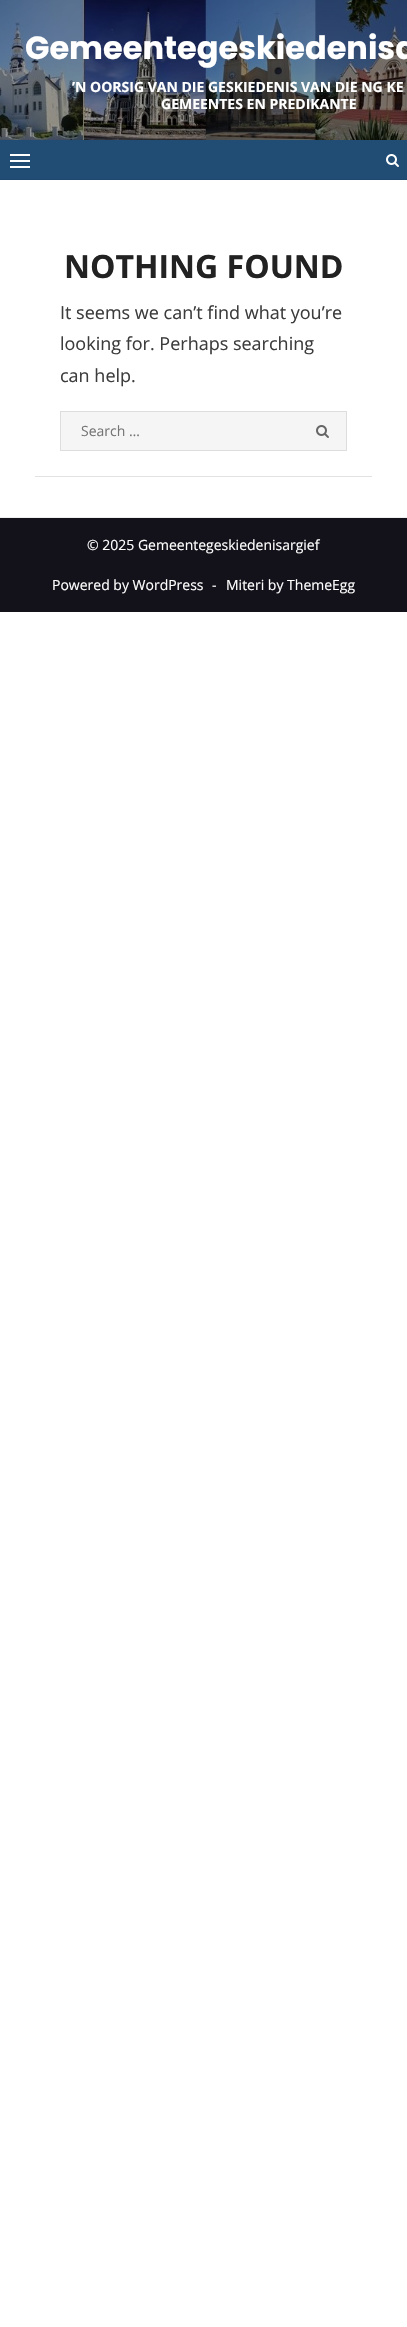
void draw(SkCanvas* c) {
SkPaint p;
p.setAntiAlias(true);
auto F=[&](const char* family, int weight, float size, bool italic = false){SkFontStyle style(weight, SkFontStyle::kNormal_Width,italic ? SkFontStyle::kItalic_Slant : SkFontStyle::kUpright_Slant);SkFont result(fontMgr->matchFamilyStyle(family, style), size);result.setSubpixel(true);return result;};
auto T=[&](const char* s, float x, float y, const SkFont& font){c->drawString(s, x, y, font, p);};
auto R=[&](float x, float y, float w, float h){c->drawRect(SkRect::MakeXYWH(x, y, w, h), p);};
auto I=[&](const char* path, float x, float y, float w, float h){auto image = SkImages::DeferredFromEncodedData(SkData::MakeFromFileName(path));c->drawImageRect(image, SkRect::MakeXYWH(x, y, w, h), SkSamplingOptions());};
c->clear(0xffffffff);
I("1.png",0,0,407,140);
auto f1 = F("Poppins",700,32);
p.setColor(0xffffffff);
T("Gemeentegeskiedenisa",25,59,f1);
auto f2 = F("Open Sans",700,14);
T("’N OORSIG VAN DIE GESKIEDENIS VAN DIE NG KE",72,92,f2);
T("GEMEENTES EN PREDIKANTE",161,109,f2);
p.setColor(0xff214d74);
R(0,140,407,39);
p.setColor(0xff1f486c);
R(0,179,407,1);
p.setColor(0xffffffff);
R(10,160,20,2);
R(10,154,20,2);
R(10,166,20,2);
I("2.png",386,154,13,13);
p.setColor(0xffe2e2e2);
R(35,476,337,1);
auto f3 = F("Open Sans",700,32);
p.setColor(0xff222222);
T("NOTHING FOUND",64,278,f3);
auto f4 = F("Open Sans",400,18);
p.setColor(0xff3c3c3c);
T("It seems we can’t find what you’re",60,319,f4);
T("looking for. Perhaps searching",60,350,f4);
T("can help.",60,382,f4);
p.setColor(0xfff5f5f5);
c->drawRect(SkRect::MakeXYWH(60.5,411.5,286,39),p);
p.setStroke(true);
p.setStrokeWidth(1);
p.setColor(0xffdddddd);
c->drawRect(SkRect::MakeXYWH(60.5,411.5,286,39),p);
auto f5 = F("Open Sans",400,14);
p.setStroke(false);
p.setColor(0xff757575);
T("Search …",81,436,f5);
I("3.png",316,425,13,13);
p.setColor(0xff131119);
R(0,518,407,94);
p.setColor(0xffeeeeee);
R(0,517,407,1);
p.setColor(0xffffffff);
T("© 2025 Gemeentegeskiedenisargief",87,550,f5);
T("Powered by WordPress",52,590,f5);
T("-",212,590,f5);
T("Miteri by ThemeEgg",226,590,f5);
}
